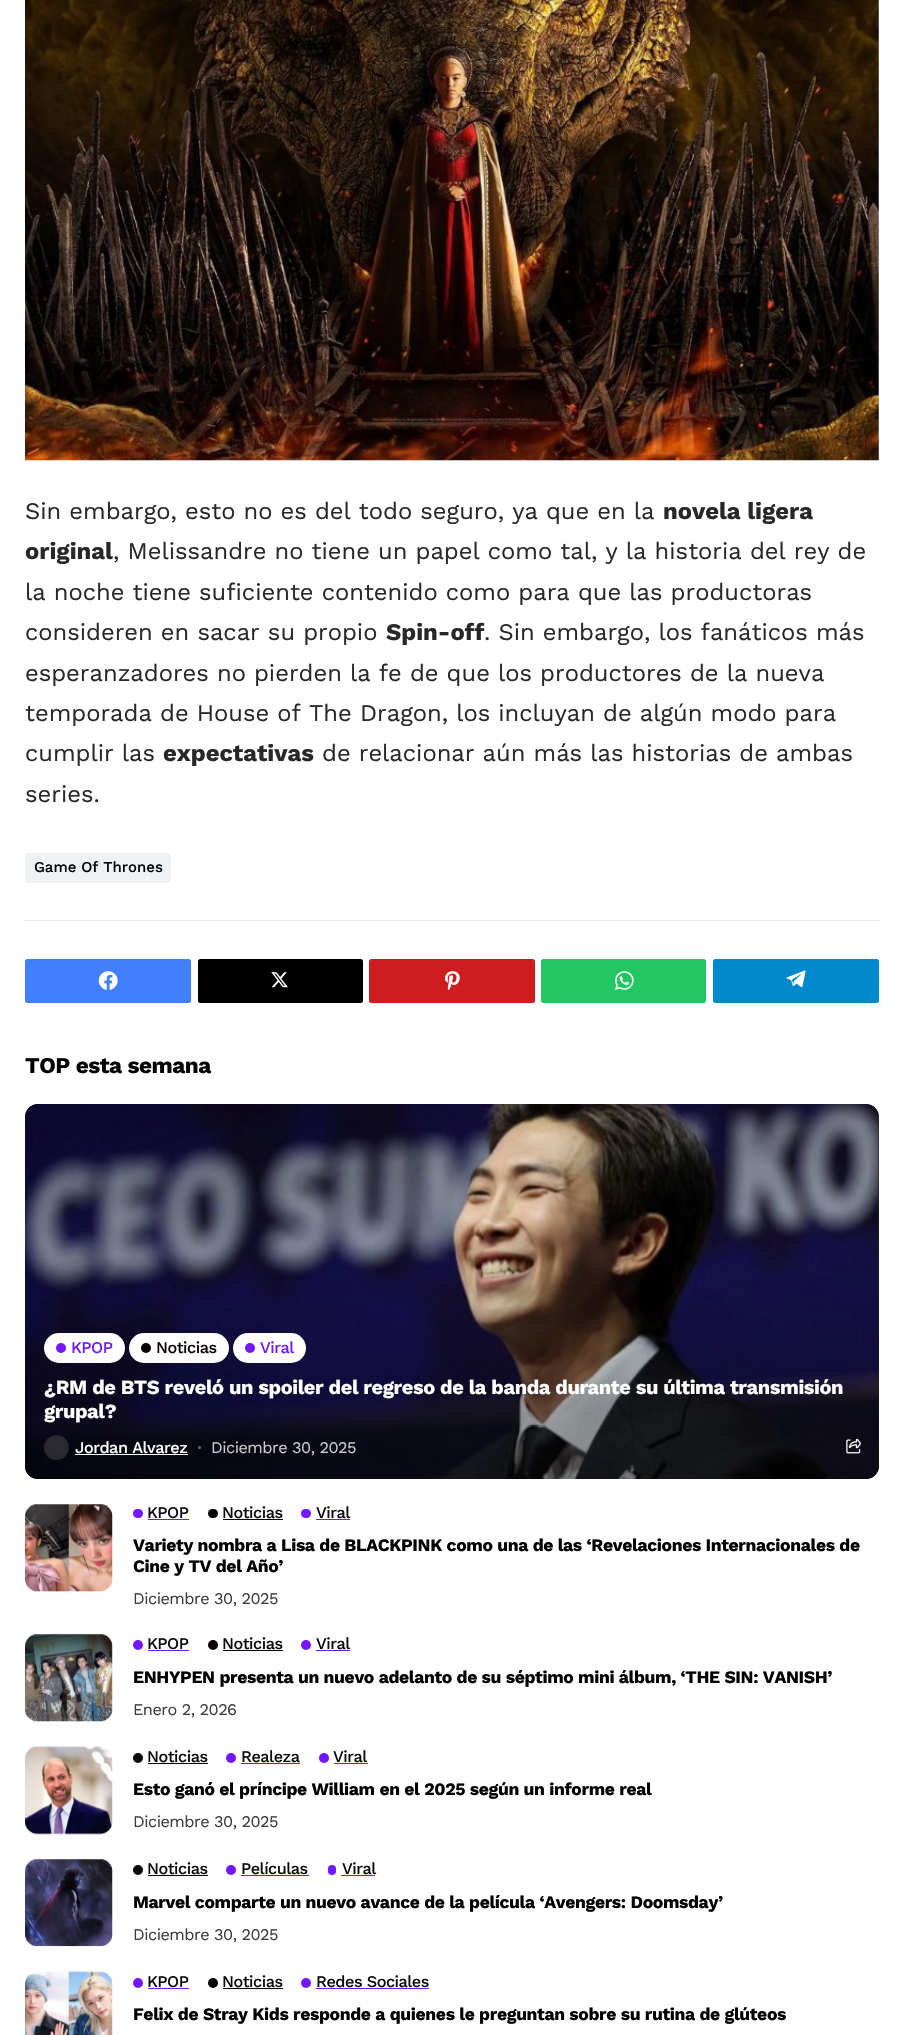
void draw(SkCanvas* c) {
SkPaint p;
p.setAntiAlias(true);
auto F=[&](const char* family, int weight, float size, bool italic = false){SkFontStyle style(weight, SkFontStyle::kNormal_Width,italic ? SkFontStyle::kItalic_Slant : SkFontStyle::kUpright_Slant);SkFont result(fontMgr->matchFamilyStyle(family, style), size);result.setSubpixel(true);return result;};
auto T=[&](const char* s, float x, float y, const SkFont& font){c->drawString(s, x, y, font, p);};
auto L=[&](const char* s, float x, float y, const SkFont& font, const SkPaint& ink, float letter, float word){std::vector<SkGlyphID> glyphs(font.countText(s, strlen(s), SkTextEncoding::kUTF8));std::vector<float> xs(glyphs.size());font.textToGlyphs(s, strlen(s), SkTextEncoding::kUTF8, glyphs);font.getXPos(glyphs, xs, x);float extra = 0;for (size_t i = 0; i < glyphs.size(); i++) {xs[i] += extra;extra += letter + word * (glyphs[i] == font.unicharToGlyph(' '));}c->drawTextBlob(SkTextBlob::MakeFromPosHGlyphs(glyphs, xs, y, font), 0, 0, ink);};
auto R=[&](float x, float y, float w, float h){c->drawRect(SkRect::MakeXYWH(x, y, w, h), p);};
auto Q=[&](float x, float y, float w, float h, float radius){c->drawRoundRect(SkRect::MakeXYWH(x, y, w, h), radius, radius, p);};
auto I=[&](const char* path, float x, float y, float w, float h){auto image = SkImages::DeferredFromEncodedData(SkData::MakeFromFileName(path));c->drawImageRect(image, SkRect::MakeXYWH(x, y, w, h), SkSamplingOptions());};
auto P=[&](const char* data, bool evenOdd = false){SkPath result = *SkParsePath::FromSVGString(data);if (evenOdd) result.setFillType(SkPathFillType::kEvenOdd);return result;};
c->clear(0xffffffff);
p.setColor(0xffe9e9e9);
R(25,920,854,1);
I("1.png",25,0,854,461);
auto f1 = F("Work Sans",400,23.75);
p.setColor(0xff282828);
T("Sin embargo, esto no es del todo seguro, ya que en la",25,519,f1);
auto f2 = F("Work Sans",700,23.75);
T("novela ligera",663,519,f2);
T("original",25,559,f2);
T(", Melissandre no tiene un papel como tal, y la historia del rey de",113,559,f1);
T("la noche tiene suficiente contenido como para que las productoras",25,600,f1);
T("consideren en sacar su propio",25,640,f1);
T("Spin-off",386,640,f2);
T(". Sin embargo, los fanáticos más",484,640,f1);
T("esperanzadores no pierden la fe de que los productores de la nueva",25,681,f1);
T("temporada de House of The Dragon, los incluyan de algún modo para",25,721,f1);
T("cumplir las",25,761,f1);
T("expectativas",163,761,f2);
T("de relacionar aún más las historias de ambas",322,761,f1);
T("series.",25,802,f1);
p.setColor(0xffeff2f5);
Q(25,853,146,30,4);
auto f3 = F("Work Sans",500,15);
p.setColor(0xff000000);
T("Game Of Thrones",34,872,f3);
p.setColor(0xff4080ff);
Q(25,959,166,44,2.5);
I("2.png",98,971,20,19);
p.setColor(0xff000000);
Q(198,959,165,44,2.5);
I("3.png",271,972,17,16);
p.setColor(0xffcd1d1f);
Q(369,959,166,44,2.5);
I("4.png",445,971,15,19);
p.setColor(0xff23c761);
Q(541,959,165,44,2.5);
I("5.png",615,971,19,19);
p.setColor(0xff0088cc);
Q(713,959,166,44,2.5);
I("6.png",786,970,20,18);
auto f4 = F("Work Sans",700,22.5);
p.setColor(0xff000000);
L("TOP esta semana",25,1073,f4,p,-.5,0);
p.setColor(0xff222222);
Q(25,1104,854,375,13);
I("7.png",25,1104,854,375);
{
const SkColor colors[] = {0x00000000,0x82000000};
const float stops[] = {.4,1};
const SkPoint ends[] = {{452,1104}, {452,1479}};
p.setShader(SkGradientShader::MakeLinear(ends, colors, stops, 2, SkTileMode::kClamp));
p.setAlpha(255);
}
Q(25,1104,854,375,13);
I("10.png",25,1504,88,88);
p.setShader(nullptr);
p.setColor(0xff7118ff);
Q(133,1509,10,9,4.5);
c->save();
c->clipPath(P("M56.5 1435c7 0 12.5 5.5 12.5 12.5c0 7-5.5 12.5-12.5 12.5c-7 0-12.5-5.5-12.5-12.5c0-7 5.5-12.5 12.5-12.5z"),true);
p.setColor(0xffced4da);
p.setMaskFilter(SkMaskFilter::MakeBlur(kNormal_SkBlurStyle, 25));
c->drawRoundRect(SkRect::MakeXYWH(44,1435,25,25),12.5,12.5,p);
p.setMaskFilter(nullptr);
c->restore();
p.setColor(0xffffffff);
Q(44,1333,81,30,15);
p.setColor(0xff7118ff);
c->drawCircle(61,1348,5,p);
auto f5 = F("Work Sans",500,16.25);
L("KPOP",71,1353,f5,p,-.5,0);
p.setColor(0xffffffff);
Q(129,1333,100,30,15);
p.setColor(0xff0a0101);
c->drawCircle(146,1348,5,p);
L("Noticias",156,1353,f5,p,-.5,0);
p.setColor(0xffffffff);
Q(233,1333,73,30,15);
p.setColor(0xff7118ff);
c->drawCircle(250,1348,5,p);
L("Viral",260,1353,f5,p,-.5,0);
auto f6 = F("Work Sans",700,20);
p.setColor(0xffffffff);
L("¿RM de BTS reveló un spoiler del regreso de la banda durante su última transmisión",44,1394,f6,p,-.4,0);
L("grupal?",44,1418,f6,p,-.4,0);
I("8.png",44,1435,25,25);
L("Jordan Alvarez",75,1453,f5,p,-.5,0);
R(75,1454,113,1);
p.setColor(0xff696a70);
c->drawCircle(199.5,1447.5,1.5,p);
auto f7 = F("Work Sans",400,16.25);
p.setColor(0xffcdcdd0);
L("Diciembre 30, 2025",211,1453,f7,p,-.5,0);
I("9.png",846,1438,15,16);
p.setColor(0xff0a0a0a);
L("KPOP",147,1518,f5,p,-.5,0);
p.setColor(0xff7118ff);
R(148,1519,41,1);
p.setColor(0xff0a0101);
Q(208,1509,10,9,4.5);
p.setColor(0xff0a0a0a);
L("Noticias",222,1518,f5,p,-.5,0);
p.setColor(0xff0a0101);
R(223,1519,60,1);
p.setColor(0xff7118ff);
Q(301,1509,10,9,4.5);
p.setColor(0xff0a0a0a);
L("Viral",316,1518,f5,p,-.5,0);
p.setColor(0xff7118ff);
R(316,1519,34,1);
auto f8 = F("Work Sans",700,17.5);
p.setColor(0xff000000);
L("Variety nombra a Lisa de BLACKPINK como una de las ‘Revelaciones Internacionales de",133,1551,f8,p,-.35,0);
L("Cine y TV del Año’",133,1572,f8,p,-.35,0);
p.setColor(0xff3b3b3b);
L("Diciembre 30, 2025",133,1604,f7,p,-.5,0);
I("11.png",25,1633,88,89);
p.setColor(0xff7118ff);
c->drawCircle(138,1645,5,p);
p.setColor(0xff0a0a0a);
L("KPOP",147,1649,f5,p,-.5,0);
p.setColor(0xff7118ff);
R(148,1650,41,1);
p.setColor(0xff0a0101);
c->drawCircle(213,1645,5,p);
p.setColor(0xff0a0a0a);
L("Noticias",222,1649,f5,p,-.5,0);
p.setColor(0xff0a0101);
R(223,1650,60,1);
p.setColor(0xff7118ff);
c->drawCircle(306,1645,5,p);
p.setColor(0xff0a0a0a);
L("Viral",316,1649,f5,p,-.5,0);
p.setColor(0xff7118ff);
R(316,1650,34,1);
p.setColor(0xff000000);
L("ENHYPEN presenta un nuevo adelanto de su séptimo mini álbum, ‘THE SIN: VANISH’",133,1683,f8,p,-.35,0);
p.setColor(0xff3b3b3b);
L("Enero 2, 2026",133,1715,f7,p,-.5,0);
I("12.png",25,1746,88,89);
p.setColor(0xff0a0101);
c->drawCircle(138,1758,5,p);
p.setColor(0xff0a0a0a);
L("Noticias",147,1762,f5,p,-.5,0);
p.setColor(0xff0a0101);
R(148,1763,60,1);
p.setColor(0xff7118ff);
c->drawCircle(231,1758,5,p);
p.setColor(0xff0a0a0a);
L("Realeza",241,1762,f5,p,-.5,0);
p.setColor(0xff7118ff);
R(241,1763,59,1);
c->drawCircle(324,1758,5,p);
p.setColor(0xff0a0a0a);
L("Viral",333,1762,f5,p,-.5,0);
p.setColor(0xff7118ff);
R(334,1763,34,1);
p.setColor(0xff000000);
L("Esto ganó el príncipe William en el 2025 según un informe real",133,1795,f8,p,-.35,0);
p.setColor(0xff3b3b3b);
L("Diciembre 30, 2025",133,1827,f7,p,-.5,0);
I("13.png",25,1858,88,89);
p.setColor(0xff0a0101);
c->drawCircle(138,1870,5,p);
p.setColor(0xff0a0a0a);
L("Noticias",147,1874,f5,p,-.5,0);
p.setColor(0xff0a0101);
R(148,1875,60,1);
p.setColor(0xff7118ff);
c->drawCircle(231,1870,5,p);
p.setColor(0xff0a0a0a);
L("Películas",241,1874,f5,p,-.5,0);
p.setColor(0xff7118ff);
R(241,1875,68,1);
Q(328,1865,8,10,4);
p.setColor(0xff0a0a0a);
L("Viral",342,1874,f5,p,-.5,0);
p.setColor(0xff7118ff);
R(341,1875,34,1);
p.setColor(0xff000000);
L("Marvel comparte un nuevo avance de la película ‘Avengers: Doomsday’",133,1908,f8,p,-.35,0);
p.setColor(0xff3b3b3b);
L("Diciembre 30, 2025",133,1940,f7,p,-.5,0);
I("14.png",25,1971,88,64);
p.setColor(0xff7118ff);
c->drawCircle(138,1983,5,p);
p.setColor(0xff0a0a0a);
L("KPOP",147,1987,f5,p,-.5,0);
p.setColor(0xff7118ff);
R(148,1988,41,1);
p.setColor(0xff0a0101);
c->drawCircle(213,1983,5,p);
p.setColor(0xff0a0a0a);
L("Noticias",222,1987,f5,p,-.5,0);
p.setColor(0xff0a0101);
R(223,1988,60,1);
p.setColor(0xff7118ff);
c->drawCircle(306,1983,5,p);
p.setColor(0xff0a0a0a);
L("Redes Sociales",316,1987,f5,p,-.5,0);
p.setColor(0xff7118ff);
R(316,1988,113,1);
p.setColor(0xff000000);
L("Felix de Stray Kids responde a quienes le preguntan sobre su rutina de glúteos",133,2020,f8,p,-.35,0);
}
